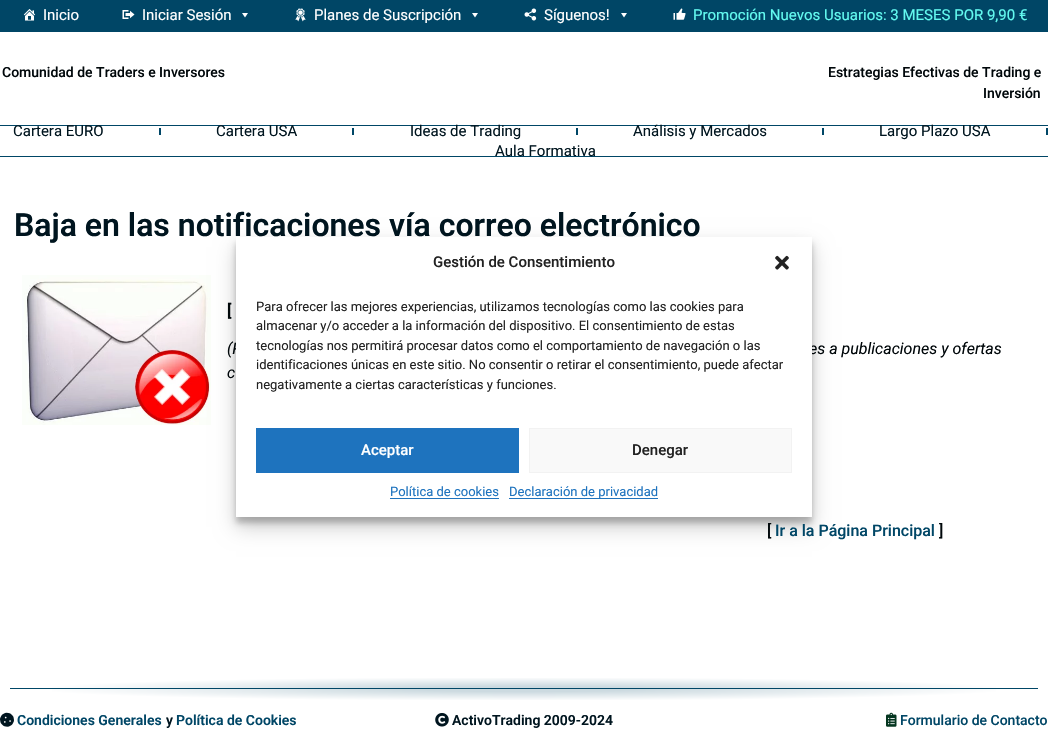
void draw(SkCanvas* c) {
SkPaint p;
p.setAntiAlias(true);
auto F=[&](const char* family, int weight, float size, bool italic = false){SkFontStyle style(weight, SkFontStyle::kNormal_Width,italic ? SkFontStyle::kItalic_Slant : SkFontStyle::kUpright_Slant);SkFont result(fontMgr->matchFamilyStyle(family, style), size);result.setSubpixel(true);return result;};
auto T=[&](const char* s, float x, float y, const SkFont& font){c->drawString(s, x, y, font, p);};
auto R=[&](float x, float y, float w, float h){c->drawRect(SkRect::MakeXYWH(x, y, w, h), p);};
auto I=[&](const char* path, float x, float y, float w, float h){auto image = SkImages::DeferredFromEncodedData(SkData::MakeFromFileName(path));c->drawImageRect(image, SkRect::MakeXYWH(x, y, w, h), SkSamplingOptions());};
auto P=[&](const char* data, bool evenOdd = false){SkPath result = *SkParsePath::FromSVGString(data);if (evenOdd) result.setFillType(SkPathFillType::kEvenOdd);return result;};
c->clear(0xffffffff);
p.setColor(0xff004666);
R(0,0,1048,32);
I("1.png",23,9,13,12);
auto f1 = F("Roboto",400,15);
p.setColor(0xffffffff);
T("Inicio",43,20,f1);
I("2.png",122,10,13,9);
T("Iniciar Sesión",142,20,f1);
c->drawPath(P("M248 13l-3 4.5l-3-4.5z"),p);
I("3.png",295,8,11,14);
T("Planes de Suscripción",314,20,f1);
c->drawPath(P("M478 13l-3 4.5l-3-4.5z"),p);
I("4.png",524,8,13,13);
T("Síguenos!",544,20,f1);
c->drawPath(P("M627 13l-3 4.5l-3-4.5z"),p);
I("5.png",673,8,13,12);
p.setColor(0xff63faf0);
T("Promoción Nuevos Usuarios: 3 MESES POR 9,90 €",693,20,f1);
auto f2 = F("Roboto",500,14);
p.setColor(0xff00070a);
T("Comunidad de Traders e Inversores",2,77,f2);
T("Estrategias Efectivas de Trading e",828,77,f2);
T("Inversión",983,98,f2);
p.setColor(0xff004666);
R(0,125,1048,1);
p.setColor(0xff00151f);
T("Cartera EURO",13,136,f1);
p.setColor(0xff004666);
R(159,128,2,7);
p.setColor(0xff00151f);
T("Cartera USA",216,136,f1);
p.setColor(0xff004666);
R(352,128,2,7);
p.setColor(0xff00151f);
T("Ideas de Trading",410,136,f1);
p.setColor(0xff004666);
R(576,128,2,7);
p.setColor(0xff00151f);
T("Análisis y Mercados",633,136,f1);
p.setColor(0xff004666);
R(822,128,2,7);
p.setColor(0xff00151f);
T("Largo Plazo USA",879,136,f1);
p.setColor(0xff004666);
R(1046,128,2,7);
R(0,156,1048,1);
p.setColor(0xff00151f);
T("Aula Formativa",495,156,f1);
auto f3 = F("Roboto",600,32);
T("Baja en las notificaciones vía correo electrónico",14,236,f3);
I("6.png",22,275,189,150);
auto f4 = F("Roboto",700,16);
p.setColor(0xff00070a);
T("[",227,316,f4);
auto f5 = F("Roboto",400,16,true);
T("(P",227,354,f5);
T("es a publicaciones y ofertas",809,354,f5);
T("c",227,378,f5);
p.setColor(0x3b000000);
p.setMaskFilter(SkMaskFilter::MakeBlur(kNormal_SkBlurStyle, 3));
c->drawRect(SkRect::MakeXYWH(236,243,576,280),p);
p.setMaskFilter(nullptr);
p.setColor(0x30000000);
p.setMaskFilter(SkMaskFilter::MakeBlur(kNormal_SkBlurStyle, 10));
c->drawRect(SkRect::MakeXYWH(236,247,576,280),p);
p.setMaskFilter(nullptr);
p.setColor(0xffffffff);
R(236,237,576,280);
auto f6 = F("Roboto",500,15);
p.setColor(0xff222222);
T("Gestión de Consentimiento",433,267,f6);
I("7.png",775,255,14,15);
auto f7 = F("Roboto",400,13);
T("Para ofrecer las mejores experiencias, utilizamos tecnologías como las cookies para",256,311,f7);
T("almacenar y/o acceder a la información del dispositivo. El consentimiento de estas",256,330,f7);
T("tecnologías nos permitirá procesar datos como el comportamiento de navegación o las",256,350,f7);
T("identificaciones únicas en este sitio. No consentir o retirar el consentimiento, puede afectar",256,369,f7);
T("negativamente a ciertas características y funciones.",256,389,f7);
p.setColor(0xff1e73be);
R(256,428,263,45);
p.setColor(0xffffffff);
T("Aceptar",361,455,f6);
p.setColor(0xfff9f9f9);
c->drawRect(SkRect::MakeXYWH(529.5,428.5,262,44),p);
p.setStroke(true);
p.setStrokeWidth(1);
p.setColor(0xfff2f2f2);
c->drawRect(SkRect::MakeXYWH(529.5,428.5,262,44),p);
p.setStroke(false);
p.setColor(0xff222222);
T("Denegar",632,455,f6);
p.setColor(0xff1e73be);
T("Política de cookies",390,496,f7);
R(390,498,109,1);
R(509,498,149,1);
T("Declaración de privacidad",509,496,f7);
auto f8 = F("Roboto",500,16);
p.setColor(0xff00070a);
T("[",767,536,f8);
p.setColor(0xff004666);
T("Ir a la Página Principal",775,536,f8);
p.setColor(0xff00070a);
T("]",939,536,f8);
{
const SkColor colors[] = {0xffccdae0,0xffffffff};
const float stops[] = {.15,.66};
SkMatrix m = SkMatrix::Translate(524,689).preScale(741,18);
p.setShader(SkGradientShader::MakeRadial({0, 0}, 1, colors, stops, 2, SkTileMode::kClamp, 0, &m));
p.setAlpha(255);
}
R(52,678,944,22);
p.setShader(nullptr);
p.setColor(0xff004666);
R(10,688,1028,1);
I("8.png",0,712,14,15);
auto f9 = F("Roboto",600,14);
T("Condiciones Generales",17,725,f9);
p.setColor(0xff00151f);
T("y",166,725,f9);
p.setColor(0xff004666);
T("Política de Cookies",176,725,f9);
I("9.png",435,713,14,14);
p.setColor(0xff00151f);
T("ActivoTrading 2009-2024",452,725,f9);
I("10.png",886,712,11,15);
p.setColor(0xff004666);
T("Formulario de Contacto",900,725,f2);
}
